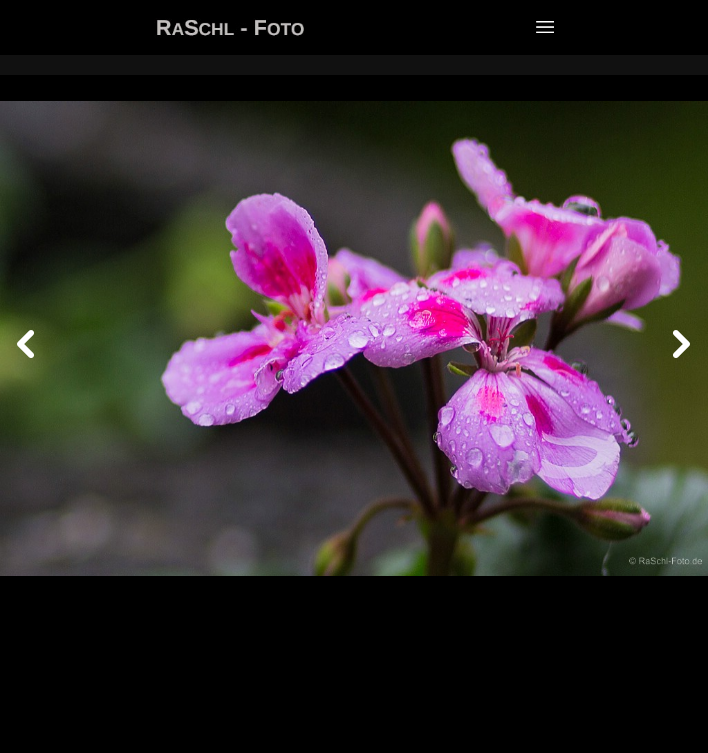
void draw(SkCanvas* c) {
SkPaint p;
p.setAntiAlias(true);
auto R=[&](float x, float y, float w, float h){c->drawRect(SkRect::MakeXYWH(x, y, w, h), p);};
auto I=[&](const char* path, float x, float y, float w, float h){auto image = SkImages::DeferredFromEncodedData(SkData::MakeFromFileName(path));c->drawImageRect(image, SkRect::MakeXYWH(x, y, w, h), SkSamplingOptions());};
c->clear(0xff111111);
p.setColor(0xff000000);
R(0,0,708,55);
I("1.png",154,18,150,20);
I("2.png",536,21,18,12);
R(0,75,708,678);
I("5.png",0,101,708,475);
I("3.png",17,330,17,28);
I("4.png",673,330,17,28);
}
